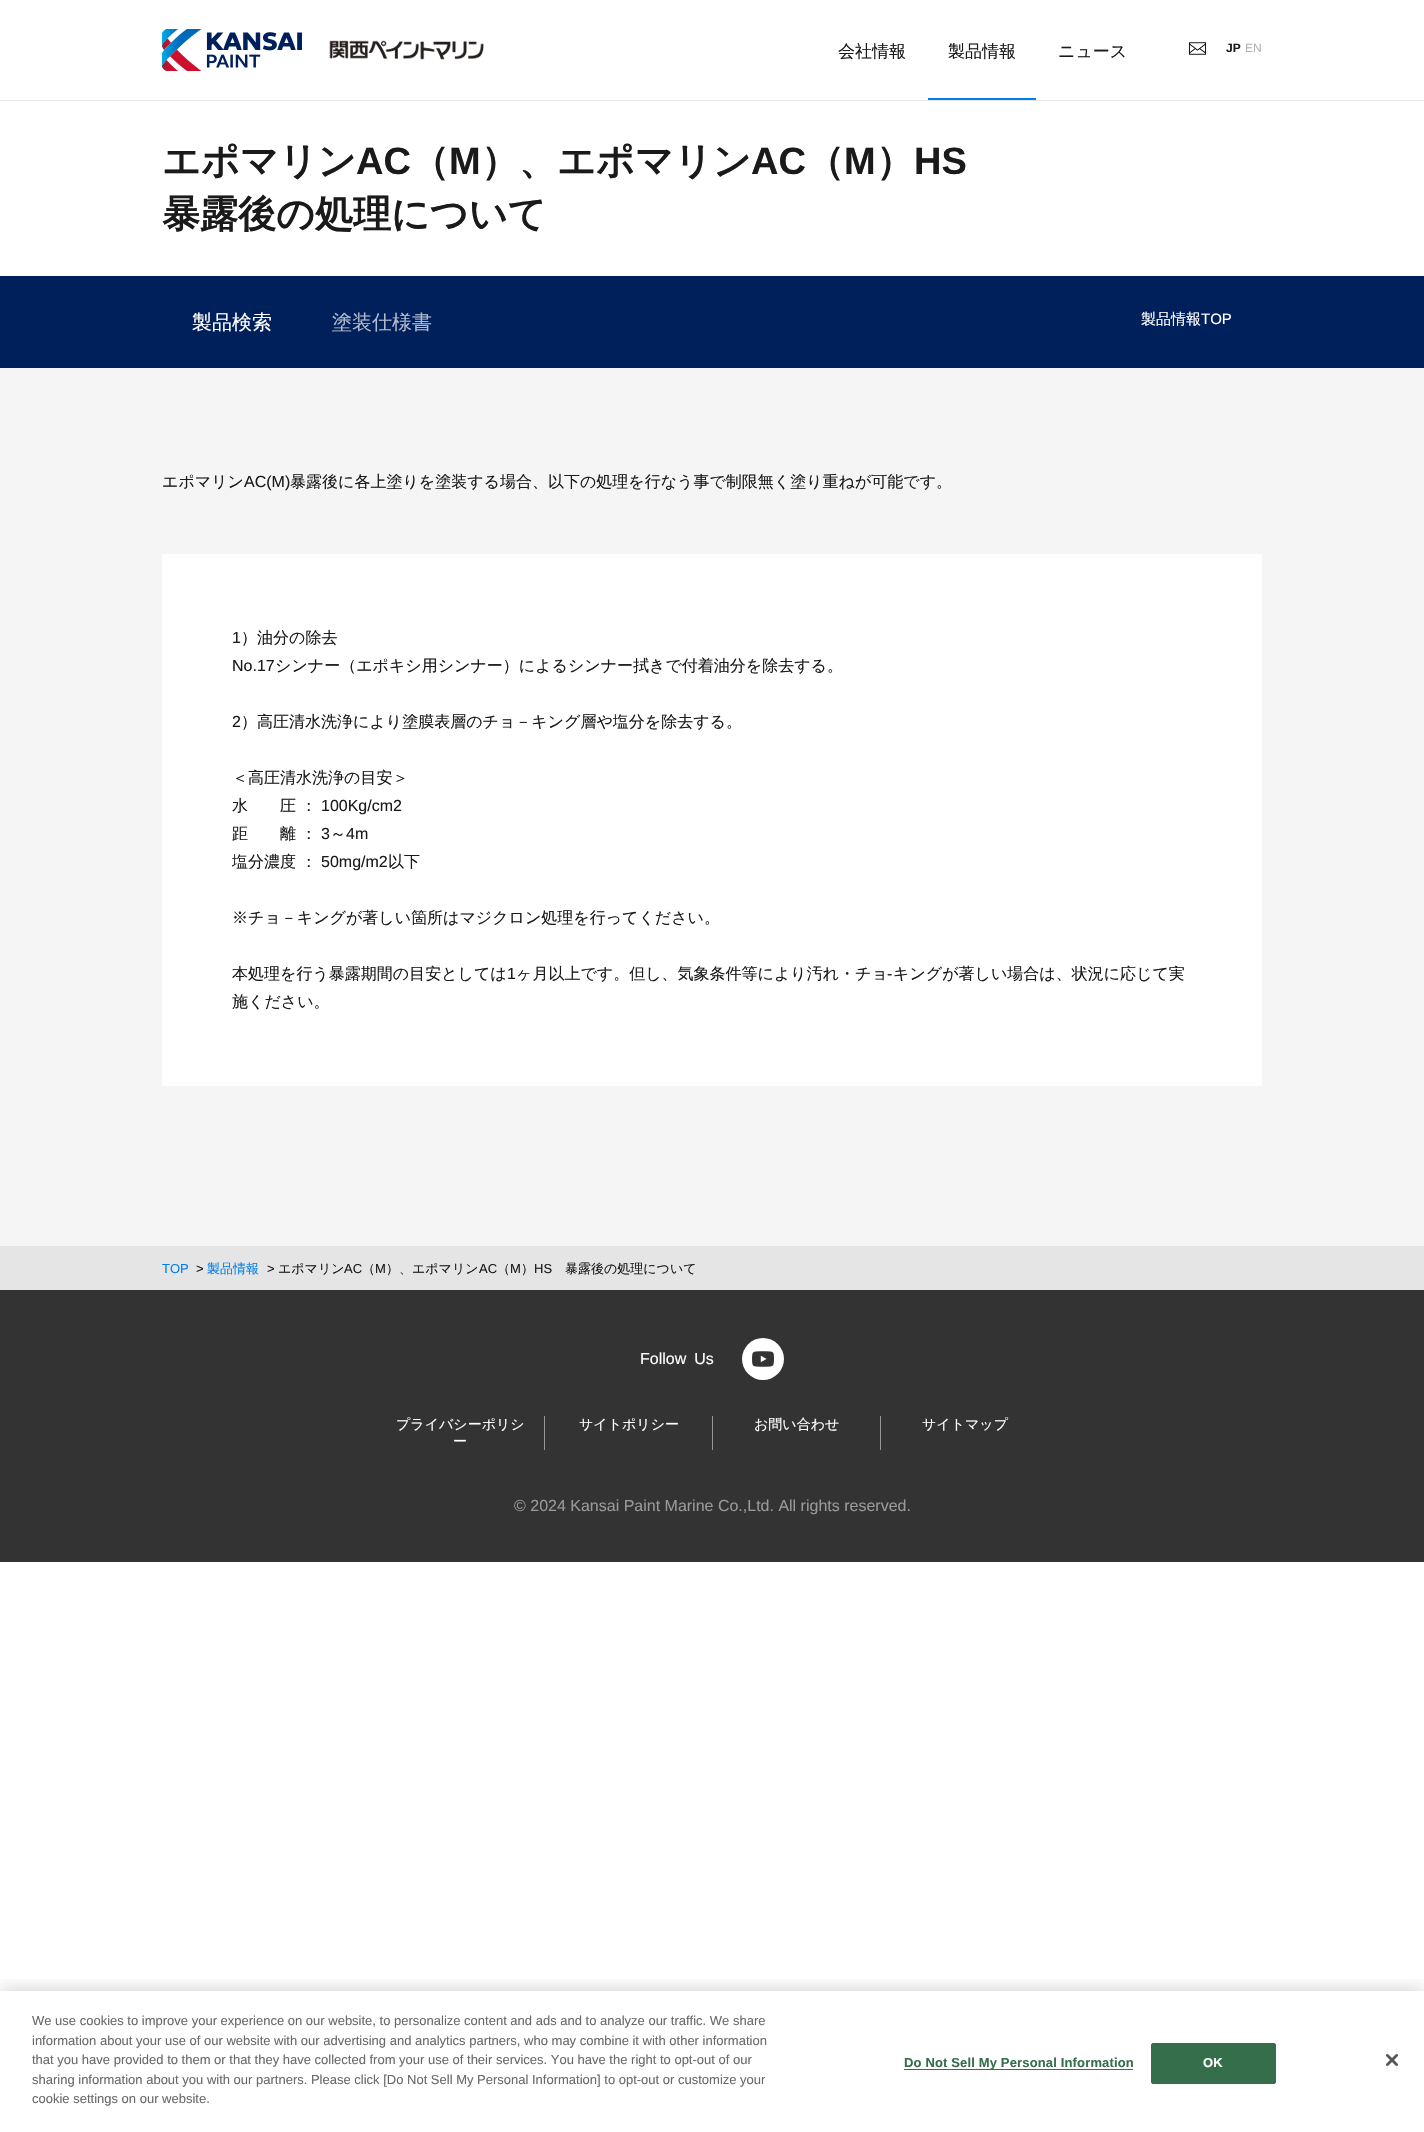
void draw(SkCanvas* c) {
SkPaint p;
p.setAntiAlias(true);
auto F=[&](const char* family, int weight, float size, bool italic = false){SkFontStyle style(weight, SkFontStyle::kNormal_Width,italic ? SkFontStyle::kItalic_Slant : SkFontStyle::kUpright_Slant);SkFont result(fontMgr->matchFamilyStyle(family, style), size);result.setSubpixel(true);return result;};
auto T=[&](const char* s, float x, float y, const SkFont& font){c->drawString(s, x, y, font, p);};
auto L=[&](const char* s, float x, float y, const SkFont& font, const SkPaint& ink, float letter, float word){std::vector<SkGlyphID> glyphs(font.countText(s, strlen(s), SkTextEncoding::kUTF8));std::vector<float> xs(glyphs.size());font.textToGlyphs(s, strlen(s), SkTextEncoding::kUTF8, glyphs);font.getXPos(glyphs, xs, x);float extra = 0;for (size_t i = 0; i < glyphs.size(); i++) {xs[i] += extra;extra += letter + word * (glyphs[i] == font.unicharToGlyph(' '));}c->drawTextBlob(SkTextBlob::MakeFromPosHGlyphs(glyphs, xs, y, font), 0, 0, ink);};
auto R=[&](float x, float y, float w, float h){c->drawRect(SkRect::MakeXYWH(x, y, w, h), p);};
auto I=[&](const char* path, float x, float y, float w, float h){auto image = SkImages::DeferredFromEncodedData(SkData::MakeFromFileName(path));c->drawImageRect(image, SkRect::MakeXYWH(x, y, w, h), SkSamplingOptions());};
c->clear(0xffffffff);
p.setColor(0xffe6e6e6);
R(0,100,1424,1);
I("1.png",162,29,322,42);
auto f1 = F("WenQuanYi Zen Hei",500,17);
p.setColor(0xff1a1a1a);
T("会社情報",838,57,f1);
T("製品情報",948,57,f1);
p.setColor(0xff027fea);
R(928,98,108,2);
p.setColor(0xff1a1a1a);
T("ニュース",1058,57,f1);
I("2.png",1189,42,17,13);
auto f2 = F("Liberation Sans",700,12);
T("JP",1226,52,f2);
auto f3 = F("Liberation Sans",400,12);
p.setColor(0xffb2b2b2);
T("EN",1245,52,f3);
p.setColor(0xfff5f5f5);
R(0,368,1424,878);
auto f4 = F("WenQuanYi Zen Hei",700,38);
p.setColor(0xff1a1a1a);
T("エポマリン",162,174,f4);
auto f5 = F("Liberation Sans",700,38);
T("AC",356,174,f5);
T("（",411,174,f4);
T("M",449,174,f5);
T("）、エポマリン",481,174,f4);
T("AC",751,174,f5);
T("（",806,174,f4);
T("M",844,174,f5);
T("）",876,174,f4);
T("HS",914,174,f5);
T("暴露後の処理について",162,227,f4);
p.setColor(0xff00205b);
R(0,276,1424,92);
auto f6 = F("WenQuanYi Zen Hei",500,20);
p.setColor(0xffffffff);
T("製品検索",192,329,f6);
p.setColor(0xffb3bcce);
T("塗装仕様書",332,329,f6);
auto f7 = F("WenQuanYi Zen Hei",500,15);
p.setColor(0xffffffff);
T("製品情報",1141,324,f7);
auto f8 = F("Liberation Sans",400,15);
T("TOP",1201,324,f8);
auto f9 = F("WenQuanYi Zen Hei",500,16);
p.setColor(0xff1a1a1a);
T("エポマリン",162,487,f9);
auto f10 = F("Liberation Sans",400,16);
T("AC(M)",244,487,f10);
T("暴露後に各上塗りを塗装する場合、以下の処理を行なう事で制限無く塗り重ねが可能です。",290,487,f9);
p.setColor(0xffffffff);
R(162,554,1100,532);
p.setColor(0xff1a1a1a);
T("1",232,643,f10);
T("）油分の除去",241,643,f9);
T("No.17",232,671,f10);
T("シンナー（エポキシ用シンナー）によるシンナー拭きで付着油分を除去する。",275,671,f9);
T("2",232,727,f10);
T("）高圧清水洗浄により塗膜表層のチョ－キング層や塩分を除去する。",241,727,f9);
T("＜高圧清水洗浄の目安＞",232,783,f9);
T("水　　圧 ：",232,811,f9);
T("100Kg/cm2",321,811,f10);
T("距　　離 ：",232,839,f9);
T("3",321,839,f10);
T("～",330,839,f9);
T("4m",346,839,f10);
T("塩分濃度 ：",232,867,f9);
T("50mg/m2",321,867,f10);
T("以下",388,867,f9);
T("※チョ－キングが著しい箇所はマジクロン処理を行ってください。",232,923,f9);
T("本処理を行う暴露期間の目安としては",232,979,f9);
T("1",507,979,f10);
T("ヶ月以上です。但し、気象条件等により汚れ・チョ",516,979,f9);
T("-",887,979,f10);
T("キングが著しい場合は、状況に応じて実",893,979,f9);
T("施ください。",232,1007,f9);
p.setColor(0xffe5e5e5);
R(0,1246,1424,44);
auto f11 = F("Liberation Sans",400,13);
p.setColor(0xff027fea);
T("TOP",162,1273,f11);
p.setColor(0xff1a1a1a);
T(">",196,1273,f11);
auto f12 = F("WenQuanYi Zen Hei",500,13);
p.setColor(0xff027fea);
T("製品情報",207,1273,f12);
p.setColor(0xff1a1a1a);
T(">",267,1273,f11);
T("エポマリン",278,1273,f12);
T("AC",344,1273,f11);
T("（",362,1273,f12);
T("M",375,1273,f11);
T("）、エポマリン",386,1273,f12);
T("AC",479,1273,f11);
T("（",497,1273,f12);
T("M",510,1273,f11);
T("）",521,1273,f12);
T("HS",534,1273,f11);
T("暴露後の処理について",565,1273,f12);
p.setColor(0xff333333);
R(0,1290,1424,272);
p.setColor(0xffffffff);
T("Follow Us",640,1364,f10);
c->drawCircle(763,1359,21,p);
I("3.png",752,1351,22,16);
auto f13 = F("WenQuanYi Zen Hei",500,14);
T("プライバシーポリシ",396,1429,f13);
T("ー",453,1446,f13);
p.setColor(0xff999999);
R(544,1416,1,34);
p.setColor(0xffffffff);
T("サイトポリシー",579,1429,f13);
p.setColor(0xff999999);
R(712,1416,1,34);
p.setColor(0xffffffff);
T("お問い合わせ",754,1429,f13);
p.setColor(0xff999999);
R(880,1416,1,34);
p.setColor(0xffffffff);
T("サイトマップ",922,1429,f13);
p.setColor(0xff999999);
T("© 2024 Kansai Paint Marine Co.,Ltd. All rights reserved.",514,1511,f10);
c->save();
c->clipRect(SkRect::MakeXYWH(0,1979,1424,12));
p.setColor(0x33000000);
p.setMaskFilter(SkMaskFilter::MakeBlur(kNormal_SkBlurStyle, 9));
c->drawRect(SkRect::MakeXYWH(0,1991,1424,141),p);
p.setMaskFilter(nullptr);
c->restore();
p.setColor(0xff696969);
T("We use cookies to improve your experience on our website, to personalize content and ads and to analyze our traffic. We share",32,2025,f11);
T("information about your use of our website with our advertising and analytics partners, who may combine it with other information",32,2045,f11);
T("that you have provided to them or that they have collected from your use of their services. You have the right to opt-out of our",32,2064,f11);
T("sharing information about you with our partners. Please click [Do Not Sell My Personal Information] to opt-out or customize your",32,2084,f11);
T("cookie settings on our website.",32,2103,f11);
p.setColor(0xff346e4a);
R(904,2069,229,1);
auto f14 = F("Liberation Sans",700,13);
L("Do Not Sell My Personal Information",904,2067,f14,p,.15,0);
c->drawRoundRect(SkRect::MakeXYWH(1151.5,2043.5,124,40),1.5,1.5,p);
p.setStroke(true);
p.setStrokeWidth(1);
c->drawRoundRect(SkRect::MakeXYWH(1151.5,2043.5,124,40),1.5,1.5,p);
p.setStroke(false);
p.setColor(0xffffffff);
L("OK",1203,2067,f14,p,.15,0);
I("4.png",1386,2054,12,12);
}
